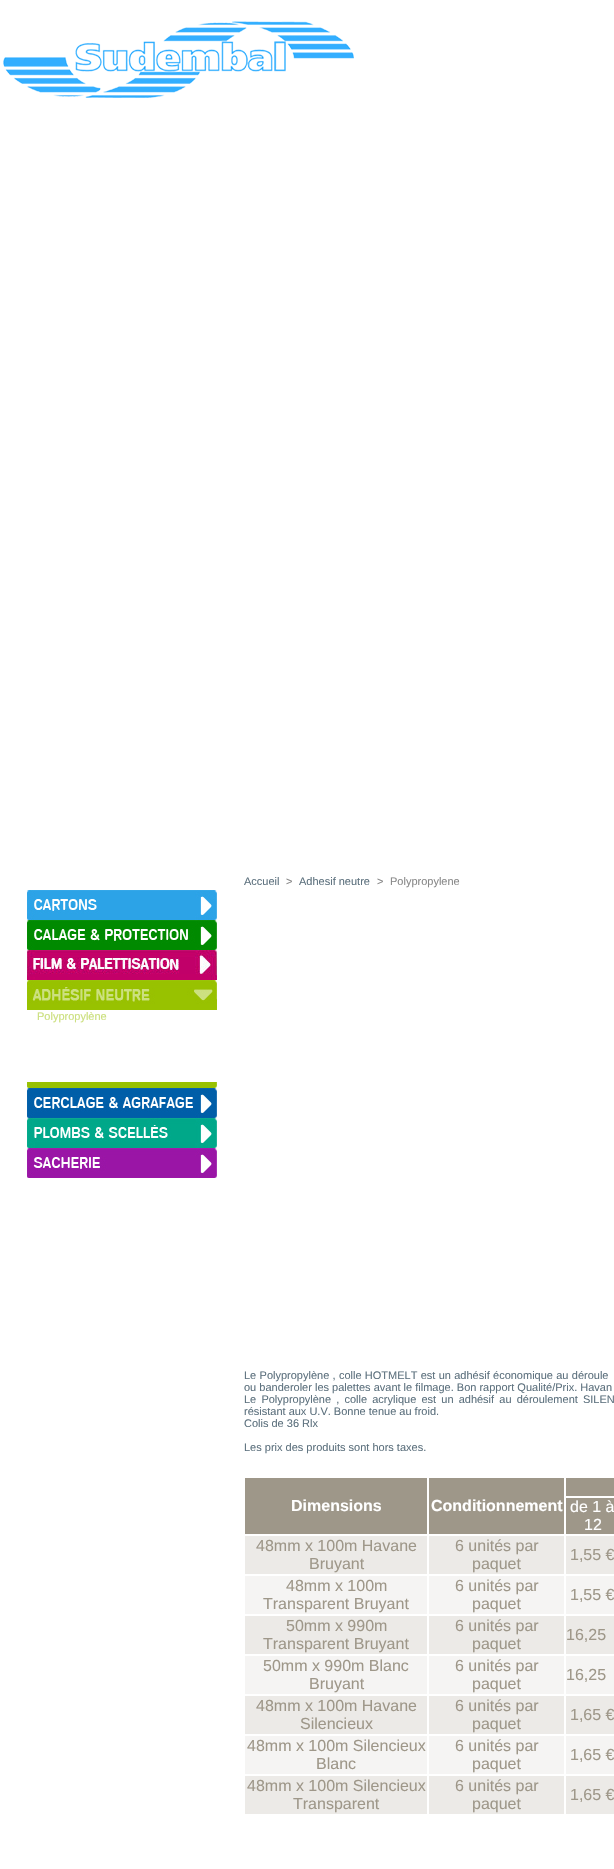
void draw(SkCanvas* c) {
SkPaint p;
p.setAntiAlias(true);
auto F=[&](const char* family, int weight, float size, bool italic = false){SkFontStyle style(weight, SkFontStyle::kNormal_Width,italic ? SkFontStyle::kItalic_Slant : SkFontStyle::kUpright_Slant);SkFont result(fontMgr->matchFamilyStyle(family, style), size);result.setSubpixel(true);return result;};
auto T=[&](const char* s, float x, float y, const SkFont& font){c->drawString(s, x, y, font, p);};
auto L=[&](const char* s, float x, float y, const SkFont& font, const SkPaint& ink, float letter, float word){std::vector<SkGlyphID> glyphs(font.countText(s, strlen(s), SkTextEncoding::kUTF8));std::vector<float> xs(glyphs.size());font.textToGlyphs(s, strlen(s), SkTextEncoding::kUTF8, glyphs);font.getXPos(glyphs, xs, x);float extra = 0;for (size_t i = 0; i < glyphs.size(); i++) {xs[i] += extra;extra += letter + word * (glyphs[i] == font.unicharToGlyph(' '));}c->drawTextBlob(SkTextBlob::MakeFromPosHGlyphs(glyphs, xs, y, font), 0, 0, ink);};
auto R=[&](float x, float y, float w, float h){c->drawRect(SkRect::MakeXYWH(x, y, w, h), p);};
auto I=[&](const char* path, float x, float y, float w, float h){auto image = SkImages::DeferredFromEncodedData(SkData::MakeFromFileName(path));c->drawImageRect(image, SkRect::MakeXYWH(x, y, w, h), SkSamplingOptions());};
c->clear(0xffffffff);
I("1.png",3,21,351,77);
I("2.png",27,890,190,30);
I("3.png",27,920,190,30);
I("4.png",27,950,190,30);
I("5.png",27,980,190,30);
auto f1 = F("Liberation Sans",400,11);
p.setColor(0xffcce07f);
T("Polypropylène",37,1020,f1);
I("6.png",27,1082,190,6);
I("7.png",27,1088,190,30);
I("8.png",27,1118,190,30);
I("9.png",27,1148,190,30);
p.setColor(0xff5d717e);
T("Accueil",244,885,f1);
p.setColor(0xff888888);
T(">",286,885,f1);
p.setColor(0xff5d717e);
T("Adhesif neutre",299,885,f1);
p.setColor(0xff888888);
T(">",377,885,f1);
T("Polypropylene",390,885,f1);
p.setColor(0xff5d717e);
L("Le Polypropylène , colle HOTMELT est un adhésif économique au déroule",244,1379,f1,p,0,.25);
T("ou banderoler les palettes avant le filmage. Bon rapport Qualité/Prix. Havan",244,1391,f1);
L("Le Polypropylène , colle acrylique est un adhésif au déroulement SILEN",244,1403,f1,p,0,2.1);
T("résistant aux U.V. Bonne tenue au froid.",244,1415,f1);
T("Colis de 36 Rlx",244,1427,f1);
T("Les prix des produits sont hors taxes.",244,1451,f1);
p.setColor(0xff9e9789);
R(566,1478,48,18);
R(245,1478,182,56);
auto f2 = F("Liberation Sans",700,16);
p.setColor(0xffffffff);
T("Dimensions",291,1511,f2);
p.setColor(0xff9e9789);
R(429,1478,135,56);
p.setColor(0xffffffff);
T("Conditionnement",431,1511,f2);
p.setColor(0xff9e9789);
R(566,1498,48,36);
auto f3 = F("Liberation Sans",400,16);
p.setColor(0xffffffff);
T("de 1 à",570,1512,f3);
T("12",584,1530,f3);
p.setColor(0xffeceae7);
R(245,1536,182,38);
p.setColor(0xff9e9789);
T("48mm x 100m Havane",256,1551,f3);
T("Bruyant",309,1569,f3);
p.setColor(0xffeceae7);
R(429,1536,135,38);
p.setColor(0xff9e9789);
T("6 unités par",455,1551,f3);
T("paquet",472,1569,f3);
p.setColor(0xffeceae7);
R(566,1536,48,38);
p.setColor(0xff9e9789);
T("1,55 €",570,1560,f3);
p.setColor(0xfff5f4f3);
R(245,1576,182,38);
p.setColor(0xff9e9789);
T("48mm x 100m",286,1591,f3);
T("Transparent Bruyant",263,1609,f3);
p.setColor(0xfff5f4f3);
R(429,1576,135,38);
p.setColor(0xff9e9789);
T("6 unités par",455,1591,f3);
T("paquet",472,1609,f3);
p.setColor(0xfff5f4f3);
R(566,1576,48,38);
p.setColor(0xff9e9789);
T("1,55 €",570,1600,f3);
p.setColor(0xffeceae7);
R(245,1616,182,38);
p.setColor(0xff9e9789);
T("50mm x 990m",286,1631,f3);
T("Transparent Bruyant",263,1649,f3);
p.setColor(0xffeceae7);
R(429,1616,135,38);
p.setColor(0xff9e9789);
T("6 unités par",455,1631,f3);
T("paquet",472,1649,f3);
p.setColor(0xffeceae7);
R(566,1616,48,38);
p.setColor(0xff9e9789);
T("16,25",566,1640,f3);
p.setColor(0xfff5f4f3);
R(245,1656,182,38);
p.setColor(0xff9e9789);
T("50mm x 990m Blanc",263,1671,f3);
T("Bruyant",309,1689,f3);
p.setColor(0xfff5f4f3);
R(429,1656,135,38);
p.setColor(0xff9e9789);
T("6 unités par",455,1671,f3);
T("paquet",472,1689,f3);
p.setColor(0xfff5f4f3);
R(566,1656,48,38);
p.setColor(0xff9e9789);
T("16,25",566,1680,f3);
p.setColor(0xffeceae7);
R(245,1696,182,38);
p.setColor(0xff9e9789);
T("48mm x 100m Havane",256,1711,f3);
T("Silencieux",300,1729,f3);
p.setColor(0xffeceae7);
R(429,1696,135,38);
p.setColor(0xff9e9789);
T("6 unités par",455,1711,f3);
T("paquet",472,1729,f3);
p.setColor(0xffeceae7);
R(566,1696,48,38);
p.setColor(0xff9e9789);
T("1,65 €",570,1720,f3);
p.setColor(0xfff5f4f3);
R(245,1736,182,38);
p.setColor(0xff9e9789);
T("48mm x 100m Silencieux",247,1751,f3);
T("Blanc",316,1769,f3);
p.setColor(0xfff5f4f3);
R(429,1736,135,38);
p.setColor(0xff9e9789);
T("6 unités par",455,1751,f3);
T("paquet",472,1769,f3);
p.setColor(0xfff5f4f3);
R(566,1736,48,38);
p.setColor(0xff9e9789);
T("1,65 €",570,1760,f3);
p.setColor(0xffeceae7);
R(245,1776,182,38);
p.setColor(0xff9e9789);
T("48mm x 100m Silencieux",247,1791,f3);
T("Transparent",293,1809,f3);
p.setColor(0xffeceae7);
R(429,1776,135,38);
p.setColor(0xff9e9789);
T("6 unités par",455,1791,f3);
T("paquet",472,1809,f3);
p.setColor(0xffeceae7);
R(566,1776,48,38);
p.setColor(0xff9e9789);
T("1,65 €",570,1800,f3);
}
